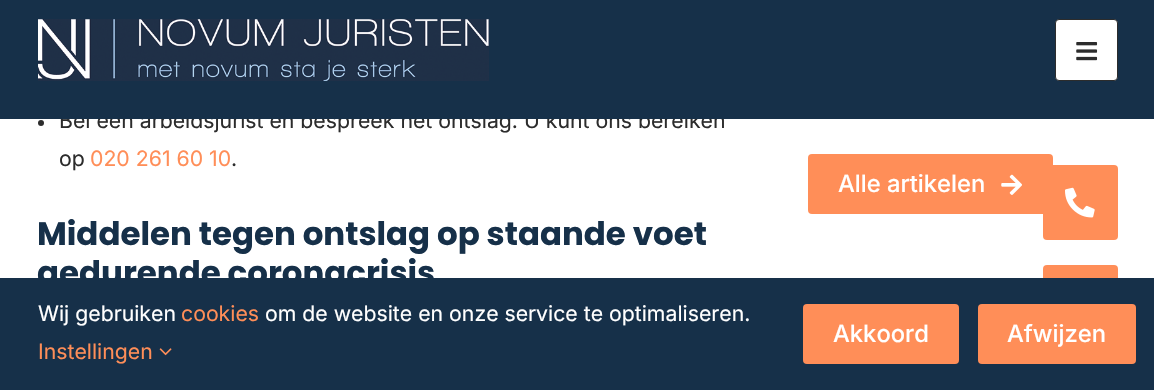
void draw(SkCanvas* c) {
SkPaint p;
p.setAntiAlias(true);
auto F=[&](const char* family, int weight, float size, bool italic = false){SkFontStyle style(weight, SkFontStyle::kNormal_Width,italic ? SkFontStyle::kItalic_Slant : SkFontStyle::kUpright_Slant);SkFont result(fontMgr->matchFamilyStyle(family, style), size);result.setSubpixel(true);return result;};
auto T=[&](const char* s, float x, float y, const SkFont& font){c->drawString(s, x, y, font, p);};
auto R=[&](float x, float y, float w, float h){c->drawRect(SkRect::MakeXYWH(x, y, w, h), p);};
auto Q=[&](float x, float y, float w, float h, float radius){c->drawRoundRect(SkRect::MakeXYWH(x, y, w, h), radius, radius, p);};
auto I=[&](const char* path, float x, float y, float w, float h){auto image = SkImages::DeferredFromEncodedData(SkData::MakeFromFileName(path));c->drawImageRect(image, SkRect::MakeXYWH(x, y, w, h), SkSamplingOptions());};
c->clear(0xffffffff);
auto f1 = F("Inter",400,21.25);
p.setColor(0xff2c2c2c);
T("Bel een arbeidsjurist en bespreek het ontslag. U kunt ons bereiken",59,128,f1);
p.setColor(0xff163049);
R(0,0,1154,119);
I("1.png",38,19,451,62);
p.setColor(0xffffffff);
c->drawRoundRect(SkRect::MakeXYWH(1055.5,19.5,62,61),3.5,3.5,p);
p.setStroke(true);
p.setStrokeWidth(1);
p.setColor(0xff2c2c2c);
c->drawRoundRect(SkRect::MakeXYWH(1055.5,19.5,62,61),3.5,3.5,p);
I("2.png",1076,42,22,19);
p.setStroke(false);
c->drawCircle(41,123,3,p);
T("op",59,166,f1);
p.setColor(0xffff8e58);
T("020 261 60 10",90,166,f1);
p.setColor(0xff2c2c2c);
T(".",231,166,f1);
auto f2 = F("Poppins",700,32.45);
p.setColor(0xff163049);
T("Middelen tegen ontslag op staande voet",37,245,f2);
T("gedurende coronacrisis",37,284,f2);
p.setColor(0xffff8e58);
Q(808,154,245,60,4);
auto f3 = F("Inter",500,23.75);
p.setColor(0xffffffff);
T("Alle artikelen",838,192,f3);
I("3.png",1001,174,21,21);
p.setColor(0xffff8e58);
Q(1043,165,75,75,4);
I("4.png",1065,187,30,31);
Q(1043,265,75,75,4);
p.setColor(0xff163049);
R(0,278,1154,112);
p.setColor(0xffffffff);
T("Wij gebruiken",38,321,f1);
p.setColor(0xffff8e58);
T("cookies",181,321,f1);
p.setColor(0xffffffff);
T("om de website en onze service te optimaliseren.",265,321,f1);
p.setColor(0xffff8e58);
T("Instellingen",38,359,f1);
I("5.png",159,348,13,8);
Q(803,304,156,60,4);
p.setColor(0xffffffff);
T("Akkoord",833,342,f3);
p.setColor(0xffff8e58);
Q(978,304,158,60,4);
p.setColor(0xffffffff);
T("Afwijzen",1007,342,f3);
}
